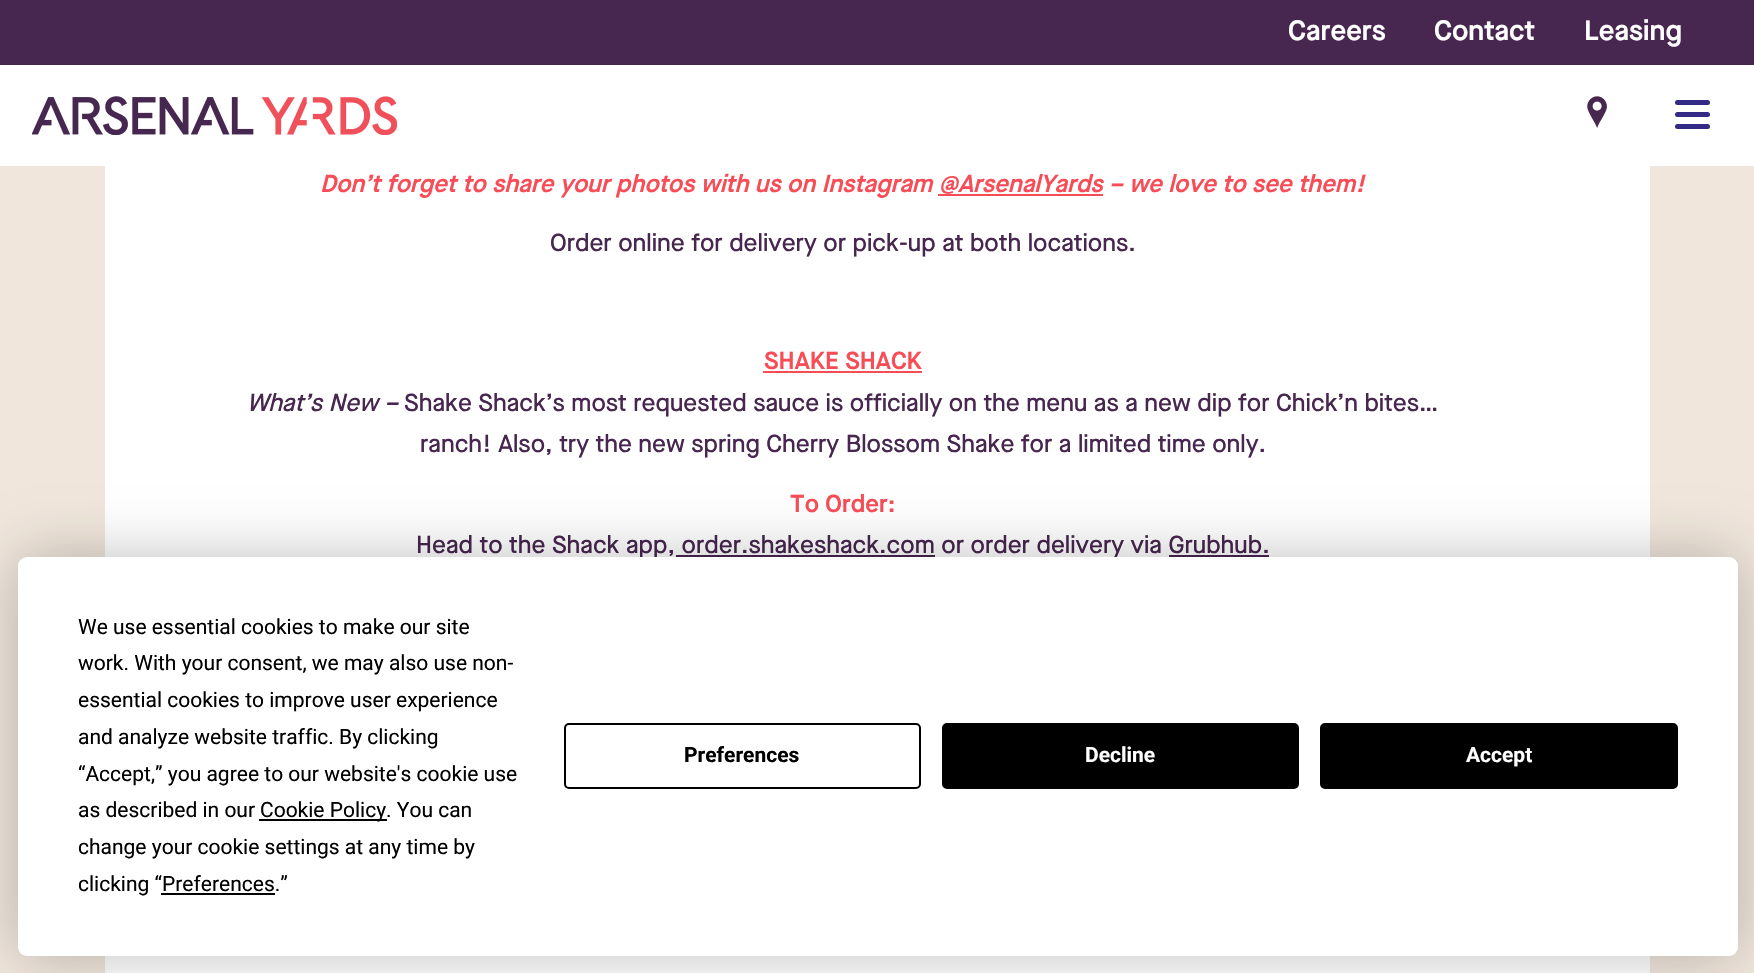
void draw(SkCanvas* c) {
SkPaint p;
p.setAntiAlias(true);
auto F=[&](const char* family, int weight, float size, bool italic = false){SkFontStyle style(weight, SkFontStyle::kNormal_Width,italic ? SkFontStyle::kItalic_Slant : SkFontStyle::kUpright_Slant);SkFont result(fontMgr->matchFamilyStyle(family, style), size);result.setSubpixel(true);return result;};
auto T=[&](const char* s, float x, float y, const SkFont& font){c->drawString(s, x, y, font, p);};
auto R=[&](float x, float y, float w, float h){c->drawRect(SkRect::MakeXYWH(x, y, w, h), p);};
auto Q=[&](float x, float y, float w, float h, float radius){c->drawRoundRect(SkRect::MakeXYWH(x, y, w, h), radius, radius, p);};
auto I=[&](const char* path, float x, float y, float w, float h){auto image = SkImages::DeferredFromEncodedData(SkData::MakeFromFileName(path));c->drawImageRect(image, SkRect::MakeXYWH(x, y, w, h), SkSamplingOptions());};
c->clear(0xfff0e6dc);
p.setColor(0xffffffff);
R(0,65,1754,101);
p.setColor(0xff47264f);
R(0,0,1754,65);
auto f1 = F("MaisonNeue",600,28);
p.setColor(0xffffffff);
T("Careers",1288,40,f1);
T("Contact",1434,40,f1);
T("Leasing",1584,40,f1);
I("1.png",32,96,365,39);
I("2.png",1587,96,20,32);
p.setColor(0xff322a85);
Q(1675,100,35,5,2.5);
Q(1675,112,35,5,2.5);
Q(1675,124,35,5,2.5);
p.setColor(0xffffffff);
R(105,166,1545,807);
auto f2 = F("MaisonNeue",600,24.5,true);
p.setColor(0xfff84d57);
T("Don’t forget to share your photos with us on Instagram @ArsenalYards – we love to see them!",320,192,f2);
R(938,194,165,2);
auto f3 = F("MaisonNeue",500,24.5);
p.setColor(0xff47264f);
T("Order online for delivery or pick-up at both locations.",550,251,f3);
auto f4 = F("MaisonNeue",600,24.5);
p.setColor(0xfff84d57);
T("SHAKE SHACK",764,369,f4);
R(763,371,159,2);
auto f5 = F("MaisonNeue",500,24.5,true);
p.setColor(0xff47264f);
T("What’s New –",247,411,f5);
T("Shake Shack’s most requested sauce is officially on the menu as a new dip for Chick’n bites…",404,411,f3);
T("ranch! Also, try the new spring Cherry Blossom Shake for a limited time only.",420,452,f3);
p.setColor(0xfff84d57);
T("To Order:",790,512,f4);
p.setColor(0xff47264f);
T("Head to the Shack app, order.shakeshack.com or order delivery via Grubhub.",416,553,f3);
R(676,555,259,2);
R(1169,555,100,2);
p.setColor(0x40000000);
p.setMaskFilter(SkMaskFilter::MakeBlur(kNormal_SkBlurStyle, 30.5));
c->drawRoundRect(SkRect::MakeXYWH(18,557,1720,399),9,9,p);
p.setMaskFilter(nullptr);
p.setColor(0xffffffff);
Q(18,557,1720,399,9);
auto f6 = F("Roboto",400,21);
p.setColor(0xff000000);
T("We use essential cookies to make our site",78,634,f6);
T("work. With your consent, we may also use non-",78,670,f6);
T("essential cookies to improve user experience",78,707,f6);
T("and analyze website traffic. By clicking",78,744,f6);
T("“Accept,” you agree to our website's cookie use",78,781,f6);
T("as described in our",78,817,f6);
R(259,819,128,2);
T("Cookie Policy. You can",260,817,f6);
T("change your cookie settings at any time by",78,854,f6);
T("clicking “Preferences.”",78,891,f6);
R(161,893,114,2);
p.setStroke(true);
p.setStrokeWidth(2);
c->drawRoundRect(SkRect::MakeXYWH(565,724,355,64),4,4,p);
auto f7 = F("Roboto",700,21);
p.setStroke(false);
T("Preferences",684,762,f7);
c->drawRoundRect(SkRect::MakeXYWH(943,724,355,64),4,4,p);
p.setStroke(true);
c->drawRoundRect(SkRect::MakeXYWH(943,724,355,64),4,4,p);
p.setStroke(false);
p.setColor(0xffffffff);
T("Decline",1085,762,f7);
p.setColor(0xff000000);
c->drawRoundRect(SkRect::MakeXYWH(1321,724,356,64),4,4,p);
p.setStroke(true);
c->drawRoundRect(SkRect::MakeXYWH(1321,724,356,64),4,4,p);
p.setStroke(false);
p.setColor(0xffffffff);
T("Accept",1466,762,f7);
}
